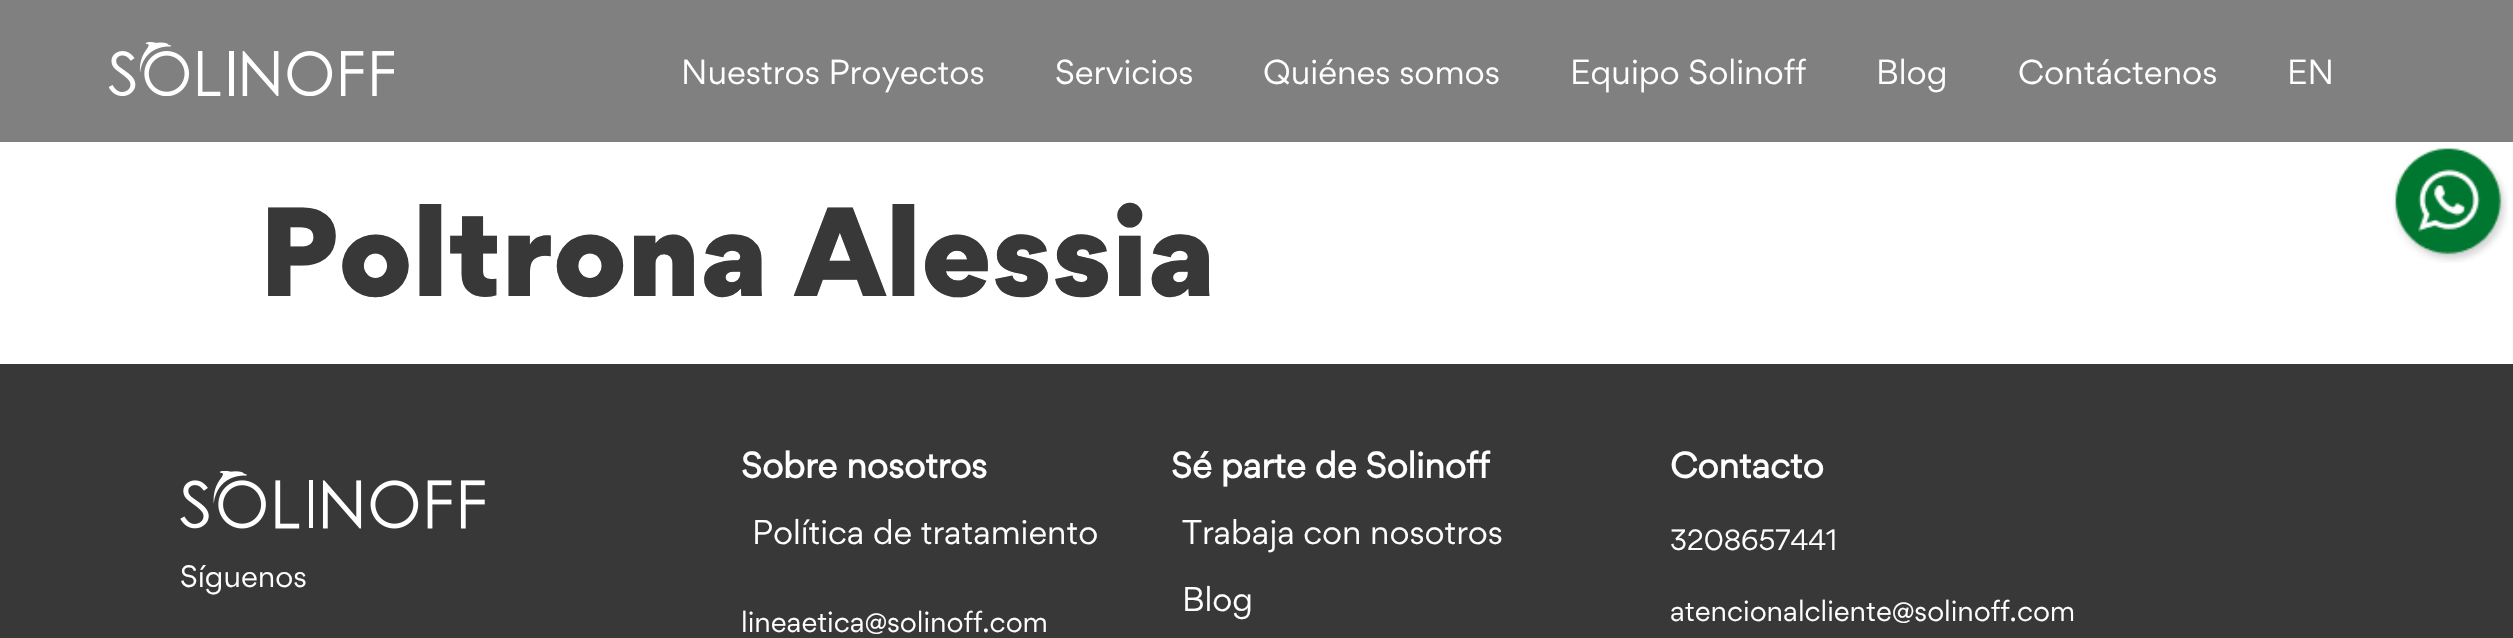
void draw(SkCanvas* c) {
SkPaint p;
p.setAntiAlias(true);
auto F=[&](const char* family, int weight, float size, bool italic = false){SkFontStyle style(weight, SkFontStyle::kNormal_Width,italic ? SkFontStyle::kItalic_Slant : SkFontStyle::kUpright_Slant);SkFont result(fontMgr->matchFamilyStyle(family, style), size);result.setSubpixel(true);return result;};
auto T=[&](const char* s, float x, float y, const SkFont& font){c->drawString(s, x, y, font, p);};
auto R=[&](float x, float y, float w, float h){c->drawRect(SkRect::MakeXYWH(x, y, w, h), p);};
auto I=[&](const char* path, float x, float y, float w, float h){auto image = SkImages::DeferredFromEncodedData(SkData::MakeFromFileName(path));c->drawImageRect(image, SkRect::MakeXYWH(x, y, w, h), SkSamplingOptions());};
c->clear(0xffffffff);
p.setColor(0xff808080);
R(0,0,2513,142);
I("1.png",109,42,285,54);
auto f1 = F("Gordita",400,33.25);
p.setColor(0xffffffff);
T("Nuestros Proyectos",681,84,f1);
T("Servicios",1055,84,f1);
T("Quiénes somos",1263,84,f1);
T("Equipo Solinoff",1570,84,f1);
T("Blog",1876,84,f1);
T("Contáctenos",2018,84,f1);
T("EN",2287,84,f1);
I("2.png",2393,148,115,115);
auto f2 = F("Gordita",900,121.25);
p.setColor(0xff383838);
T("Poltrona Alessia",259,296,f2);
R(0,364,2513,274);
I("3.png",180,471,305,58);
auto f3 = F("Gordita",400,29.75);
p.setColor(0xffffffff);
T("Síguenos",180,587,f3);
auto f4 = F("Gordita",700,35);
T("Sobre nosotros",741,478,f4);
auto f5 = F("Gordita",400,33);
T("Política de tratamiento",752,544,f5);
auto f6 = F("Gordita",400,28);
T("lineaetica@solinoff.com",741,632,f6);
T("Sé parte de Solinoff",1171,478,f4);
T("Trabaja con nosotros",1182,544,f5);
T("Blog",1182,611,f5);
T("Contacto",1670,478,f4);
T("3208657441",1670,550,f6);
T("atencionalcliente@solinoff.com",1670,621,f6);
}
